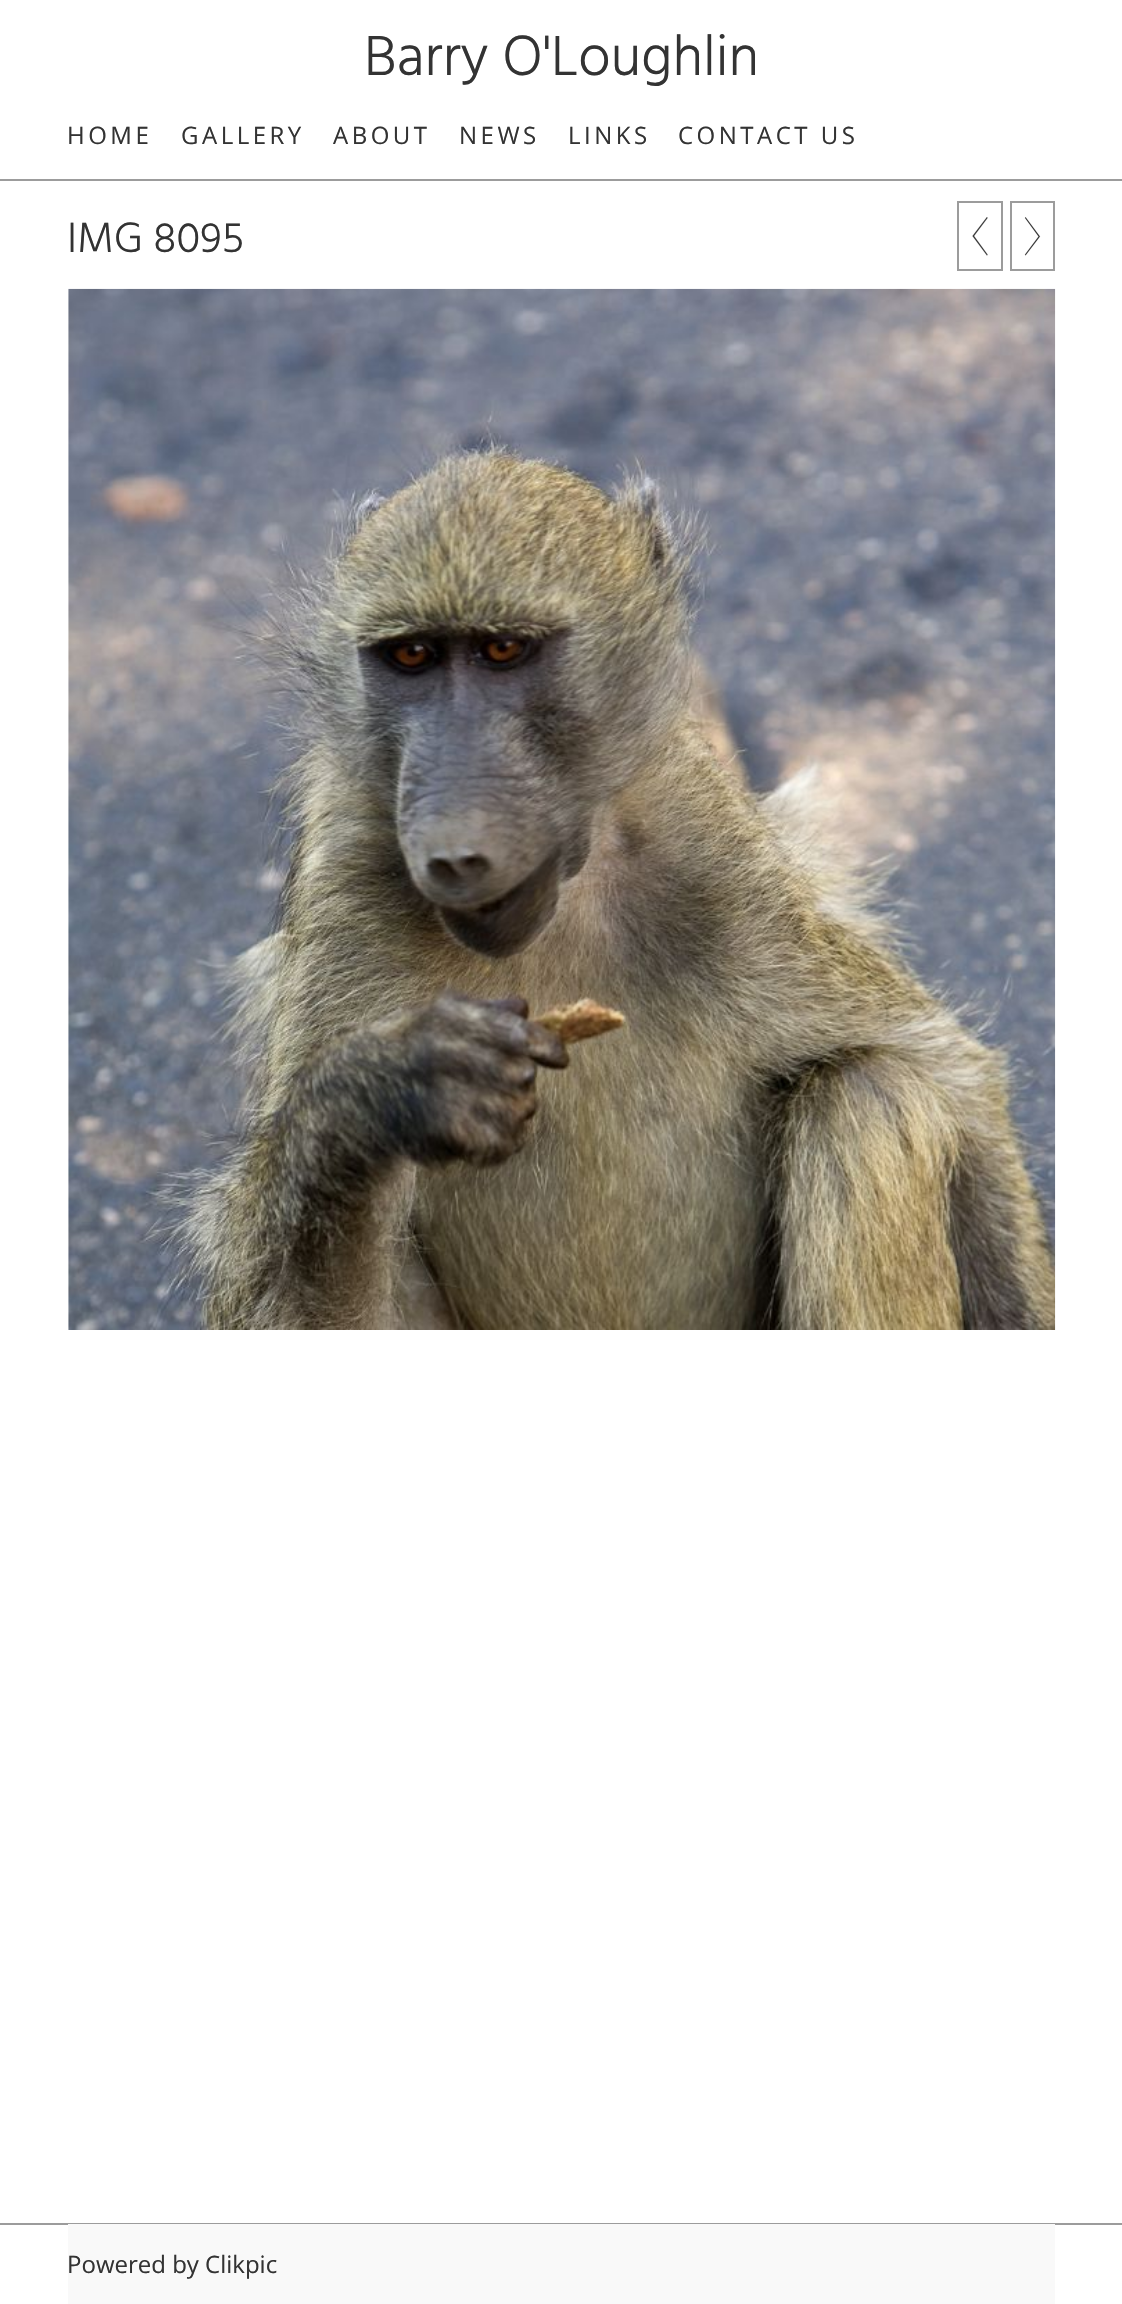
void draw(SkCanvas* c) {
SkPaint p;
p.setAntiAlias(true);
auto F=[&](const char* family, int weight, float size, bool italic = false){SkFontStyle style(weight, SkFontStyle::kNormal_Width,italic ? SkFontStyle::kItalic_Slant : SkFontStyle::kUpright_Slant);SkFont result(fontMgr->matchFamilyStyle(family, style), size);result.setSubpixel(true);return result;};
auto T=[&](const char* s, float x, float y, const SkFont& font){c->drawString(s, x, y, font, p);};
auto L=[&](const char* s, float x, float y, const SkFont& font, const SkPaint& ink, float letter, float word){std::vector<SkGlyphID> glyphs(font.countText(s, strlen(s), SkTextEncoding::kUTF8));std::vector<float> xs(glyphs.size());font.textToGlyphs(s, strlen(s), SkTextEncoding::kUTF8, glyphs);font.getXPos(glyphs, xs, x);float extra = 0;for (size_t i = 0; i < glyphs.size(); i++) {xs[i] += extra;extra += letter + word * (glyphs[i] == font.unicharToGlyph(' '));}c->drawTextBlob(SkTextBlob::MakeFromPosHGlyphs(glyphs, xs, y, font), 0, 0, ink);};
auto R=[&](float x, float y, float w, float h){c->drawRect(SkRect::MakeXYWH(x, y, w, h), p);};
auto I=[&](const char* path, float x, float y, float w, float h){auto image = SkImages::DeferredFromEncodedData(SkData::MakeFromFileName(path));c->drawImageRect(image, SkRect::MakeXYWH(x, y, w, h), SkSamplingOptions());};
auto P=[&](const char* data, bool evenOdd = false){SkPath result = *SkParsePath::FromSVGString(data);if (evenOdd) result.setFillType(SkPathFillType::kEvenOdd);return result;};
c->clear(0xffffffff);
p.setColor(0xff9c9c9c);
R(0,179,1122,2);
auto f1 = F("Hind",300,57.75);
p.setColor(0xff333333);
T("Barry O'Loughlin",364,75,f1);
auto f2 = F("Open Sans",400,24);
L("HOME",67,144,f2,p,3.5,0);
L("GALLERY",181,144,f2,p,3.5,0);
L("ABOUT",333,144,f2,p,3.5,0);
L("NEWS",459,144,f2,p,3.5,0);
L("LINKS",568,144,f2,p,3.5,0);
L("CONTACT US",678,144,f2,p,3.5,0);
auto f3 = F("Hind",300,43.5);
T("IMG 8095",67,252,f3);
p.setStroke(true);
p.setStrokeWidth(2);
p.setColor(0xff9c9c9c);
c->drawRect(SkRect::MakeXYWH(958,202,44,68),p);
p.setStroke(false);
p.setColor(0xff333333);
c->drawPath(P("M987 255.5l-14.5-19.5l14.5-19l.5 1l-13.5 18l13.5 18.5z"),p);
p.setStroke(true);
p.setStrokeWidth(.2);
c->drawPath(P("M987 255.5l-14.5-19.5l14.5-19l.5 1l-13.5 18l13.5 18.5z"),p);
p.setStrokeWidth(2);
p.setColor(0xff9c9c9c);
c->drawRect(SkRect::MakeXYWH(1011,202,43,68),p);
p.setStroke(false);
p.setColor(0xff333333);
c->drawPath(P("M1025.5 255.5l-.5-1l13.5-18l-13.5-18.5l.5-1l14.5 19.5z"),p);
p.setStroke(true);
p.setStrokeWidth(.1);
c->drawPath(P("M1025.5 255.5l-.5-1l13.5-18l-13.5-18.5l.5-1l14.5 19.5z"),p);
I("1.png",68,288,988,1042);
p.setStroke(false);
p.setColor(0xff9c9c9c);
R(0,2223,1122,2);
p.setColor(0xfff9f9f9);
R(68,2224,987,80);
p.setColor(0xff333333);
T("Powered by Clikpic",67,2273,f2);
}
